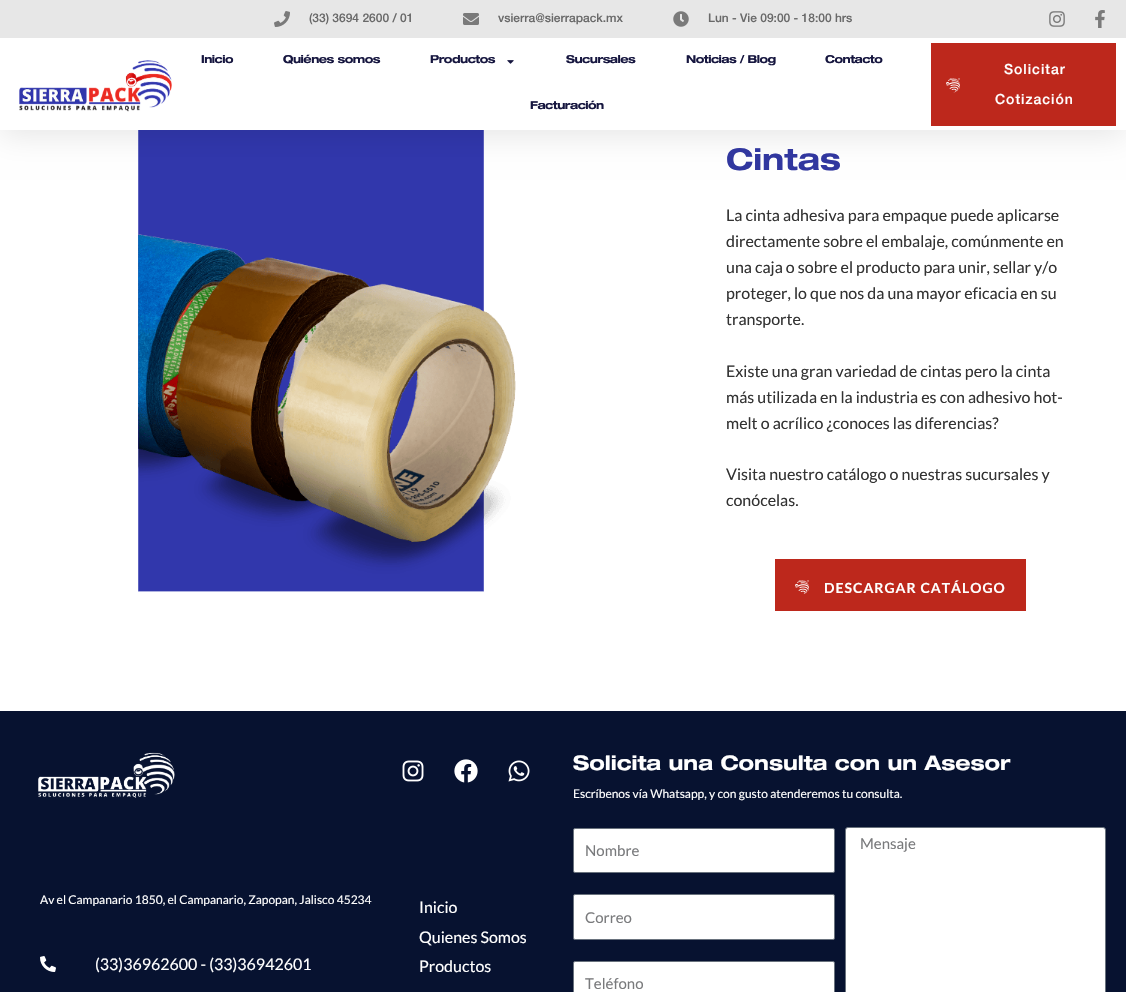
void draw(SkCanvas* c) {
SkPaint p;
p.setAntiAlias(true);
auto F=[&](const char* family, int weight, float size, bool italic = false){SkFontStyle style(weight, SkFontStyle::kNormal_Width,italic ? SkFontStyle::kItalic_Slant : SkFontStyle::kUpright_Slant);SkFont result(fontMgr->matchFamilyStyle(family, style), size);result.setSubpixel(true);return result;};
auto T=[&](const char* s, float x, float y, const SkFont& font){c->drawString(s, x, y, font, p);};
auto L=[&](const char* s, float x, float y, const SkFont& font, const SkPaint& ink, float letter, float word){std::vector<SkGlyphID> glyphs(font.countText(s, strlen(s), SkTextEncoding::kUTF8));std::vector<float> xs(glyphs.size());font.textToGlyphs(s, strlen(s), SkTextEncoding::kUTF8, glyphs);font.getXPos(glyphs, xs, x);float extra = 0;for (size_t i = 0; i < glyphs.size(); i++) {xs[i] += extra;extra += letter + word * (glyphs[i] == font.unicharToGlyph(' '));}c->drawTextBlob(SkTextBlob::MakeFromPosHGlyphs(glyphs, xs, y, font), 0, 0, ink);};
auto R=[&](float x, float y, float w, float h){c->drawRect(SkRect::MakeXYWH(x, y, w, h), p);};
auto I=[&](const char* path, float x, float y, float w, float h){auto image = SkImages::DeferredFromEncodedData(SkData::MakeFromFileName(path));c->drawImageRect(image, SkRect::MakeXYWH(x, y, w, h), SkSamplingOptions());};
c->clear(0xffffffff);
I("9.png",138,130,378,462);
p.setColor(0x1a000000);
p.setMaskFilter(SkMaskFilter::MakeBlur(kNormal_SkBlurStyle, 15));
c->drawRect(SkRect::MakeXYWH(0,5,1126,130),p);
p.setMaskFilter(nullptr);
p.setColor(0xffe7e7e7);
R(0,0,1126,38);
I("1.png",274,11,16,16);
auto f1 = F("Helvetica Neue",500,12);
p.setColor(0xff696969);
T("(33) 3694 2600 / 01",309,22,f1);
I("2.png",463,13,16,12);
T("vsierra@sierrapack.mx",498,22,f1);
I("3.png",673,11,16,16);
T("Lun - Vie 09:00 - 18:00 hrs",708,22,f1);
I("4.png",1049,11,16,16);
I("5.png",1095,10,10,18);
p.setColor(0xffffffff);
R(0,38,1126,92);
I("6.png",19,60,153,52);
auto f2 = F("Helvetica Neue",700,11);
p.setColor(0xff16163f);
L("Inicio",201,63,f2,p,-.5,0);
L("Quiénes somos",283,63,f2,p,-.5,0);
L("Productos",430,63,f2,p,-.5,0);
I("7.png",507,60,7,4);
L("Sucursales",566,63,f2,p,-.5,0);
L("Noticias / Blog",686,63,f2,p,-.5,0);
L("Contacto",825,63,f2,p,-.5,0);
L("Facturación",530,109,f2,p,-.5,0);
p.setColor(0xffbd281c);
R(931,43,185,83);
I("8.png",946,78,14,15);
auto f3 = F("Helvetica Neue",500,14);
p.setColor(0xffffffff);
L("Solicitar",1004,74,f3,p,1,0);
L("Cotización",995,104,f3,p,1,0);
auto f4 = F("Helvetica Neue",700,30);
p.setColor(0xff31379f);
T("Cintas",726,170,f4);
auto f5 = F("Lato",400,16);
p.setColor(0xff333333);
T("La cinta adhesiva para empaque puede aplicarse",726,221,f5);
T("directamente sobre el embalaje, comúnmente en",726,247,f5);
T("una caja o sobre el producto para unir, sellar y/o",726,273,f5);
T("proteger, lo que nos da una mayor eficacia en su",726,299,f5);
T("transporte.",726,325,f5);
T("Existe una gran variedad de cintas pero la cinta",726,377,f5);
T("más utilizada en la industria es con adhesivo hot-",726,403,f5);
T("melt o acrílico ¿conoces las diferencias?",726,429,f5);
T("Visita nuestro catálogo o nuestras sucursales y",726,480,f5);
T("conócelas.",726,506,f5);
p.setColor(0xffbd281c);
R(775,559,251,52);
I("10.png",795,580,14,14);
auto f6 = F("Lato",700,14);
p.setColor(0xffffffff);
L("DESCARGAR CATÁLOGO",824,593,f6,p,1,0);
p.setColor(0xff071230);
R(0,711,1126,281);
I("11.png",38,752,137,46);
I("12.png",402,760,22,22);
I("13.png",454,759,24,24);
I("14.png",508,760,22,22);
auto f7 = F("Lato",400,12);
p.setColor(0xffffffff);
T("Av el Campanario 1850, el Campanario, Zapopan, Jalisco 45234",40,904,f7);
I("15.png",40,956,16,16);
T("(33)36962600 - (33)36942601",95,970,f5);
T("Inicio",419,913,f5);
T("Quienes Somos",419,943,f5);
T("Productos",419,972,f5);
auto f8 = F("Helvetica Neue",700,20);
T("Solicita una Consulta con un Asesor",573,770,f8);
T("Escríbenos vía Whatsapp, y con gusto atenderemos tu consulta.",573,798,f7);
c->drawRoundRect(SkRect::MakeXYWH(573.5,828.5,261,44),1.5,1.5,p);
p.setStroke(true);
p.setStrokeWidth(1);
p.setColor(0xff69727d);
c->drawRoundRect(SkRect::MakeXYWH(573.5,828.5,261,44),1.5,1.5,p);
auto f9 = F("Lato",400,15);
p.setStroke(false);
p.setColor(0xff797a7c);
T("Nombre",585,856,f9);
p.setColor(0xffffffff);
c->drawRoundRect(SkRect::MakeXYWH(845.5,827.5,260,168),2.5,2.5,p);
p.setStroke(true);
p.setColor(0xff69727d);
c->drawRoundRect(SkRect::MakeXYWH(845.5,827.5,260,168),2.5,2.5,p);
p.setStroke(false);
p.setColor(0xff797a7c);
T("Mensaje",860,849,f9);
p.setColor(0xffffffff);
c->drawRoundRect(SkRect::MakeXYWH(573.5,894.5,261,45),1.5,1.5,p);
p.setStroke(true);
p.setColor(0xff69727d);
c->drawRoundRect(SkRect::MakeXYWH(573.5,894.5,261,45),1.5,1.5,p);
p.setStroke(false);
p.setColor(0xff797a7c);
T("Correo",585,923,f9);
p.setColor(0xffffffff);
c->drawRoundRect(SkRect::MakeXYWH(573.5,961.5,261,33),1.5,1.5,p);
p.setStroke(true);
p.setColor(0xff69727d);
c->drawRoundRect(SkRect::MakeXYWH(573.5,961.5,261,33),1.5,1.5,p);
p.setStroke(false);
p.setColor(0xff797a7c);
T("Teléfono",585,989,f9);
}
